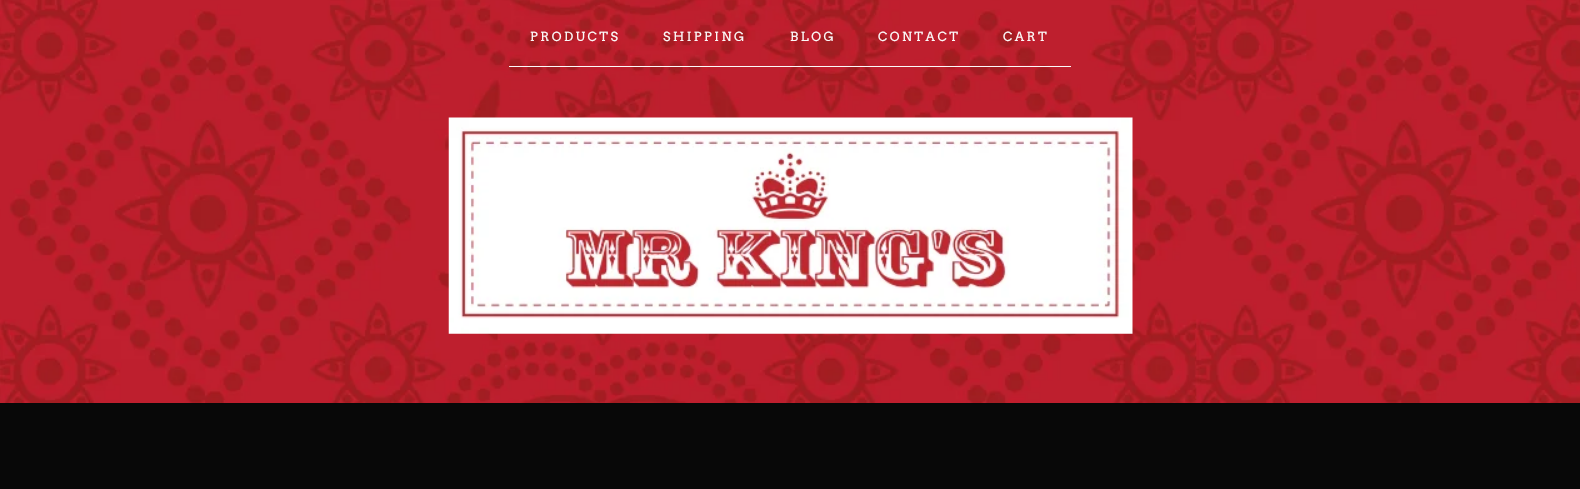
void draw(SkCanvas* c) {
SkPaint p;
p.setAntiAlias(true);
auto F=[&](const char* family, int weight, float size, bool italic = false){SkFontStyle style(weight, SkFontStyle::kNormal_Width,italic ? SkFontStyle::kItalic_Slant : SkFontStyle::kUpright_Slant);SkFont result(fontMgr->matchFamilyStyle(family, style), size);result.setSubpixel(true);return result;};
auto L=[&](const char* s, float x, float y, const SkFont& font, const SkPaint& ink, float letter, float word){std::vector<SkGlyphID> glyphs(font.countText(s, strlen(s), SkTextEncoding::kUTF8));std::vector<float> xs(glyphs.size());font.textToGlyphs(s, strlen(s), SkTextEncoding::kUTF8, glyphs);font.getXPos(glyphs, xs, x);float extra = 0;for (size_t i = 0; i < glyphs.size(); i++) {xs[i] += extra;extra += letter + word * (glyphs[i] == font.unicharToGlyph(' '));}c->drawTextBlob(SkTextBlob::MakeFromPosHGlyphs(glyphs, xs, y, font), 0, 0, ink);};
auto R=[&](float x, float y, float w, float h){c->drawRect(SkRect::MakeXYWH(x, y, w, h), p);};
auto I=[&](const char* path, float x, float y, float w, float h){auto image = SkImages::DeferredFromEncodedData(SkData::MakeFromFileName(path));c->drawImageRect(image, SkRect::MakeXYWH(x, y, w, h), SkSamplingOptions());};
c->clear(0xffffffff);
I("1.png",0,0,1580,403);
p.setColor(0xfffcf9f9);
R(509,66,562,1);
auto f1 = F("Arvo",400,12.5);
L("PRODUCTS",530,41,f1,p,2.5,0);
L("SHIPPING",663,41,f1,p,2.5,0);
L("BLOG",790,41,f1,p,2.5,0);
L("CONTACT",878,41,f1,p,2.5,0);
L("CART",1003,41,f1,p,2.5,0);
I("2.png",448,117,685,217);
p.setColor(0xff080808);
R(0,403,1580,86);
}
